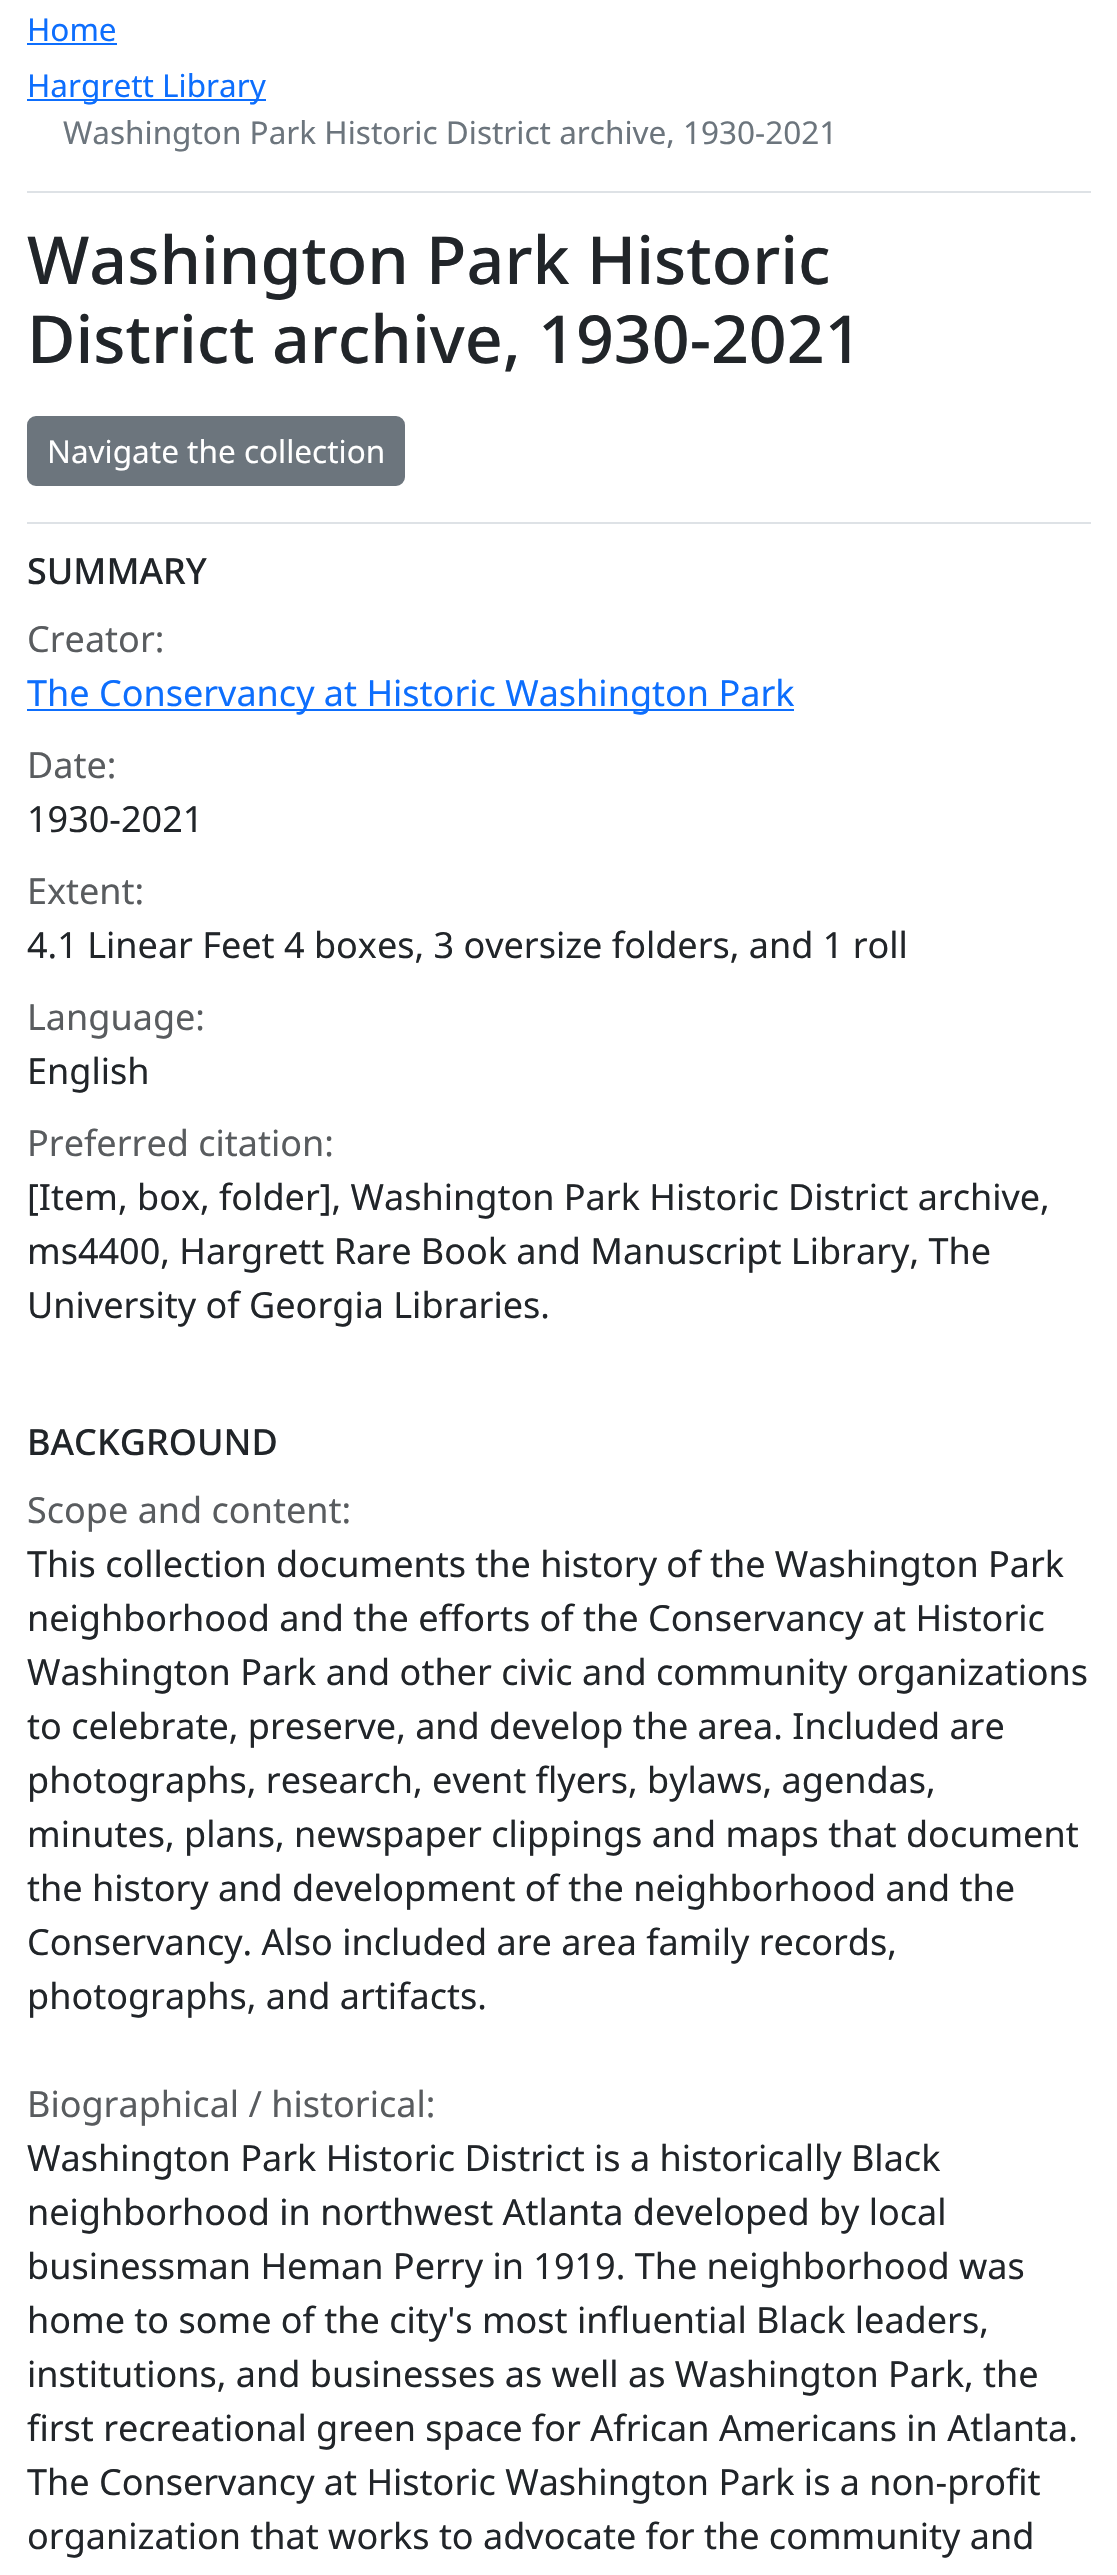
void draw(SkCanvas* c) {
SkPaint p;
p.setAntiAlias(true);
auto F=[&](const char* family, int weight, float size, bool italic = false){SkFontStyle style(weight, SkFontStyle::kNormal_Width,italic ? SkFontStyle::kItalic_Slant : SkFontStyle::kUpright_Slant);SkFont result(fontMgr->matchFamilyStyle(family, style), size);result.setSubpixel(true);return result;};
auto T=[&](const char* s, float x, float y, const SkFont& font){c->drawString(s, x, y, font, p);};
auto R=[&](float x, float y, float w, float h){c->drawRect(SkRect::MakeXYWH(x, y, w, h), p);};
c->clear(0xffffffff);
p.setColor(0xffdee2e6);
R(27,191,1064,2);
auto f1 = F("Noto Sans",400,31.5);
p.setColor(0xff0d6efd);
T("Home",27,41,f1);
R(27,43,90,2);
R(27,99,239,2);
T("Hargrett Library",27,97,f1);
p.setColor(0xff6c757d);
T("Washington Park Historic District archive, 1930-2021",63,144,f1);
p.setColor(0xffdee2e6);
R(27,522,1064,2);
auto f2 = F("Noto Sans",500,66.25);
p.setColor(0xff212529);
T("Washington Park Historic",27,284,f2);
T("District archive, 1930-2021",27,363,f2);
p.setColor(0xff6c757d);
c->drawRoundRect(SkRect::MakeXYWH(28,417,376,68),8,8,p);
p.setStroke(true);
p.setStrokeWidth(2);
c->drawRoundRect(SkRect::MakeXYWH(28,417,376,68),8,8,p);
p.setStroke(false);
p.setColor(0xffffffff);
T("Navigate the collection",47,463,f1);
auto f3 = F("Noto Sans",500,36);
p.setColor(0xff212529);
T("SUMMARY",27,584,f3);
auto f4 = F("Noto Sans",400,36);
p.setColor(0xff595c5f);
T("Creator:",27,652,f4);
p.setColor(0xff0d6efd);
R(27,709,767,2);
T("The Conservancy at Historic Washington Park",27,706,f4);
p.setColor(0xff595c5f);
T("Date:",27,778,f4);
p.setColor(0xff212529);
T("1930-2021",27,832,f4);
p.setColor(0xff595c5f);
T("Extent:",27,904,f4);
p.setColor(0xff212529);
T("4.1 Linear Feet 4 boxes, 3 oversize folders, and 1 roll",27,958,f4);
p.setColor(0xff595c5f);
T("Language:",27,1030,f4);
p.setColor(0xff212529);
T("English",27,1084,f4);
p.setColor(0xff595c5f);
T("Preferred citation:",27,1156,f4);
p.setColor(0xff212529);
T("[Item, box, folder], Washington Park Historic District archive,",27,1210,f4);
T("ms4400, Hargrett Rare Book and Manuscript Library, The",27,1264,f4);
T("University of Georgia Libraries.",27,1318,f4);
T("BACKGROUND",27,1455,f3);
p.setColor(0xff595c5f);
T("Scope and content:",27,1523,f4);
p.setColor(0xff212529);
T("This collection documents the history of the Washington Park",27,1577,f4);
T("neighborhood and the efforts of the Conservancy at Historic",27,1631,f4);
T("Washington Park and other civic and community organizations",27,1685,f4);
T("to celebrate, preserve, and develop the area. Included are",27,1739,f4);
T("photographs, research, event flyers, bylaws, agendas,",27,1793,f4);
T("minutes, plans, newspaper clippings and maps that document",27,1847,f4);
T("the history and development of the neighborhood and the",27,1901,f4);
T("Conservancy. Also included are area family records,",27,1955,f4);
T("photographs, and artifacts.",27,2009,f4);
p.setColor(0xff595c5f);
T("Biographical / historical:",27,2117,f4);
p.setColor(0xff212529);
T("Washington Park Historic District is a historically Black",27,2171,f4);
T("neighborhood in northwest Atlanta developed by local",27,2225,f4);
T("businessman Heman Perry in 1919. The neighborhood was",27,2279,f4);
T("home to some of the city's most influential Black leaders,",27,2333,f4);
T("institutions, and businesses as well as Washington Park, the",27,2387,f4);
T("first recreational green space for African Americans in Atlanta.",27,2441,f4);
T("The Conservancy at Historic Washington Park is a non-profit",27,2495,f4);
T("organization that works to advocate for the community and",27,2549,f4);
}
